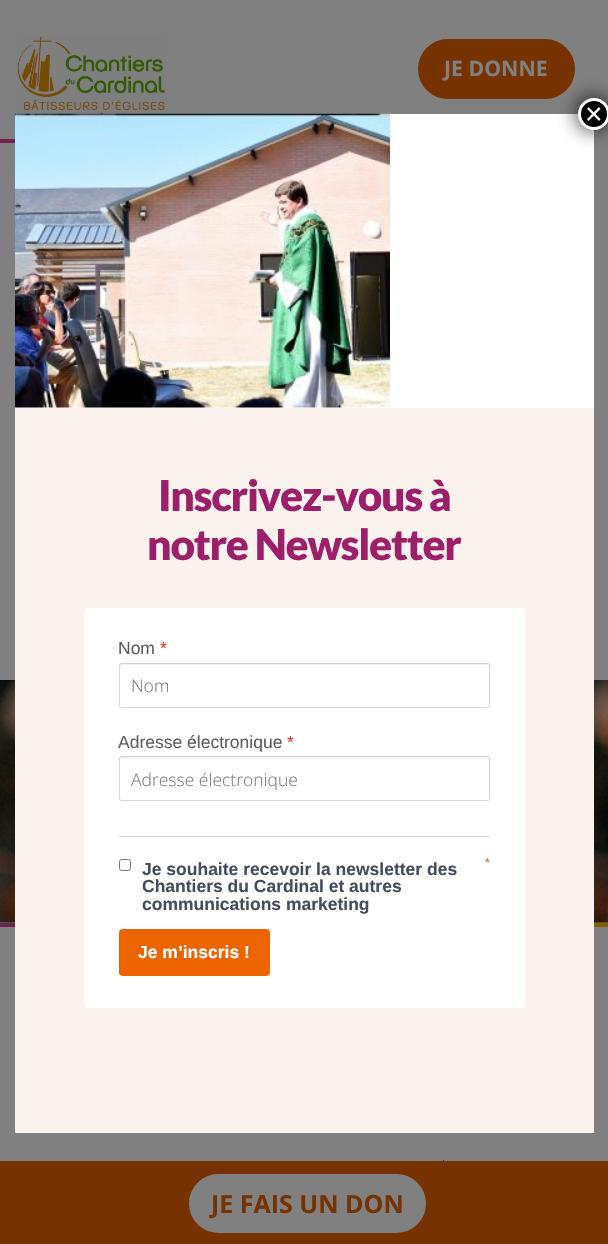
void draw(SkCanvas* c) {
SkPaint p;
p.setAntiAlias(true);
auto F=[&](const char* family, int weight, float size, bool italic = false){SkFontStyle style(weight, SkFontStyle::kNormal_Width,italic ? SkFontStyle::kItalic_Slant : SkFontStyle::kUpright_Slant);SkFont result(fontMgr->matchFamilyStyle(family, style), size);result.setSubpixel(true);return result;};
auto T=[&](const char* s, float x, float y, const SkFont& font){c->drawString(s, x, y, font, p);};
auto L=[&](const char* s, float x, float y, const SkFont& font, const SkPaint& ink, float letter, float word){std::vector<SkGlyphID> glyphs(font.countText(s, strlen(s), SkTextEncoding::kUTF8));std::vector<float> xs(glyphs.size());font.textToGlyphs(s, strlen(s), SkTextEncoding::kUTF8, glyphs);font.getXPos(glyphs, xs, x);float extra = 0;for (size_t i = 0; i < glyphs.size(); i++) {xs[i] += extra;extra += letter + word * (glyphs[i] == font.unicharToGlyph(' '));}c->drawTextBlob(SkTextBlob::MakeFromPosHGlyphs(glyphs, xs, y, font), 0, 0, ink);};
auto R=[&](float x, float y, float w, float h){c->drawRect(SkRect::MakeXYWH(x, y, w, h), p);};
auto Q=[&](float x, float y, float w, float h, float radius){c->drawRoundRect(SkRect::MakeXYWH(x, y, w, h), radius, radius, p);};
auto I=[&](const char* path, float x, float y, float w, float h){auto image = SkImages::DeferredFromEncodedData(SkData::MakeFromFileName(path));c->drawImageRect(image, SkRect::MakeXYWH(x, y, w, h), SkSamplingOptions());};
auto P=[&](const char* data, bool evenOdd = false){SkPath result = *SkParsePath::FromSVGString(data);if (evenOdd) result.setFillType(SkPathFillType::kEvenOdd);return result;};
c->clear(0xff808080);
I("1.png",17,35,150,79);
p.setColor(0xff763200);
c->drawRoundRect(SkRect::MakeXYWH(419.5,40.5,154,57),28.5,28.5,p);
p.setStroke(true);
p.setStrokeWidth(3);
c->drawRoundRect(SkRect::MakeXYWH(419.5,40.5,154,57),28.5,28.5,p);
auto f1 = F("Open Sans",700,21.25);
p.setStroke(false);
p.setColor(0xff808080);
T("JE DONNE",444,76,f1);
p.setColor(0xff6c254f);
R(0,139,15,4);
p.setColor(0xffffffff);
R(15,114,579,294);
p.setColor(0xbf020202);
p.setMaskFilter(SkMaskFilter::MakeBlur(kNormal_SkBlurStyle, 9.5));
c->drawRoundRect(SkRect::MakeXYWH(576,96,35,35),17.5,17.5,p);
p.setMaskFilter(nullptr);
p.setColor(0xff000000);
c->drawCircle(594,114,14.5,p);
p.setStroke(true);
p.setColor(0xffffffff);
c->drawCircle(594,114,14.5,p);
auto f2 = F("Liberation Sans",400,30);
p.setStroke(false);
T("×",585,124,f2);
I("2.png",15,113,375,295);
I("3.png",0,680,608,243);
p.setColor(0xfffaf2ec);
R(15,408,579,725);
auto f3 = F("Lato",900,42.5);
p.setColor(0xff9d1f69);
L("Inscrivez-vous à",158,511,f3,p,-1.25,0);
L("notre Newsletter",147,560,f3,p,-1.25,0);
p.setColor(0xffffffff);
Q(84,608,441,400,4);
auto f4 = F("Liberation Sans",400,17.5);
p.setColor(0xff5d5d65);
T("Nom",118,654,f4);
p.setColor(0xffdd362a);
T("*",160,654,f4);
p.setStroke(true);
p.setStrokeWidth(1);
p.setColor(0xffd2d7df);
c->drawRoundRect(SkRect::MakeXYWH(119.5,663.5,370,44),2,2,p);
p.setStroke(false);
p.setColor(0x1a8e9aad);
c->drawPath(P("M121 665h367c1 0 2 1 2 2c0-2 0-4-2-4h-366c-3 0-3 2-3 4c0-1 1-2 2-2z"),p);
auto f5 = F("Open Sans",300,17.5);
p.setColor(0xff7c7878);
T("Nom",131,692,f5);
p.setColor(0xff5d5d65);
T("Adresse électronique",118,748,f4);
p.setColor(0xffdd362a);
T("*",287,748,f4);
p.setStroke(true);
p.setColor(0xffd2d7df);
c->drawRoundRect(SkRect::MakeXYWH(119.5,756.5,370,44),2,2,p);
p.setStroke(false);
p.setColor(0x1a8e9aad);
c->drawPath(P("M121 759h367c1 0 2 1 2 2v-3c0-1-1-2-2-2h-366c-2 0-3 1-3 2v3c0-1 1-2 2-2z"),p);
p.setColor(0xff7c7878);
T("Adresse électronique",131,786,f5);
p.setColor(0xffd2d7df);
R(119,836,371,1);
auto f6 = F("Open Sans",400,9);
p.setColor(0xffdd362a);
T("*",485,865,f6);
p.setStroke(true);
p.setColor(0xff767676);
c->drawRoundRect(SkRect::MakeXYWH(119.5,859.5,11,11),2,2,p);
auto f7 = F("Liberation Sans",700,17.5);
p.setStroke(false);
p.setColor(0xff434d5d);
T("Je souhaite recevoir la newsletter des",142,875,f7);
T("Chantiers du Cardinal et autres",142,892,f7);
T("communications marketing",142,910,f7);
p.setColor(0xffeb6400);
Q(119,929,151,47,4);
p.setColor(0xffffffff);
T("Je m’inscris !",138,958,f7);
p.setColor(0xff6c254f);
R(0,923,15,4);
p.setColor(0xff806000);
R(594,923,14,4);
p.setColor(0xff763200);
R(443,1160,1,1);
R(0,1161,608,83);
p.setColor(0xff808080);
c->drawRoundRect(SkRect::MakeXYWH(190.5,1175.5,234,56),28,28,p);
p.setStroke(true);
p.setStrokeWidth(3);
c->drawRoundRect(SkRect::MakeXYWH(190.5,1175.5,234,56),28,28,p);
auto f8 = F("Open Sans",700,25);
p.setStroke(false);
p.setColor(0xff763200);
T("JE FAIS UN DON",211,1213,f8);
}
